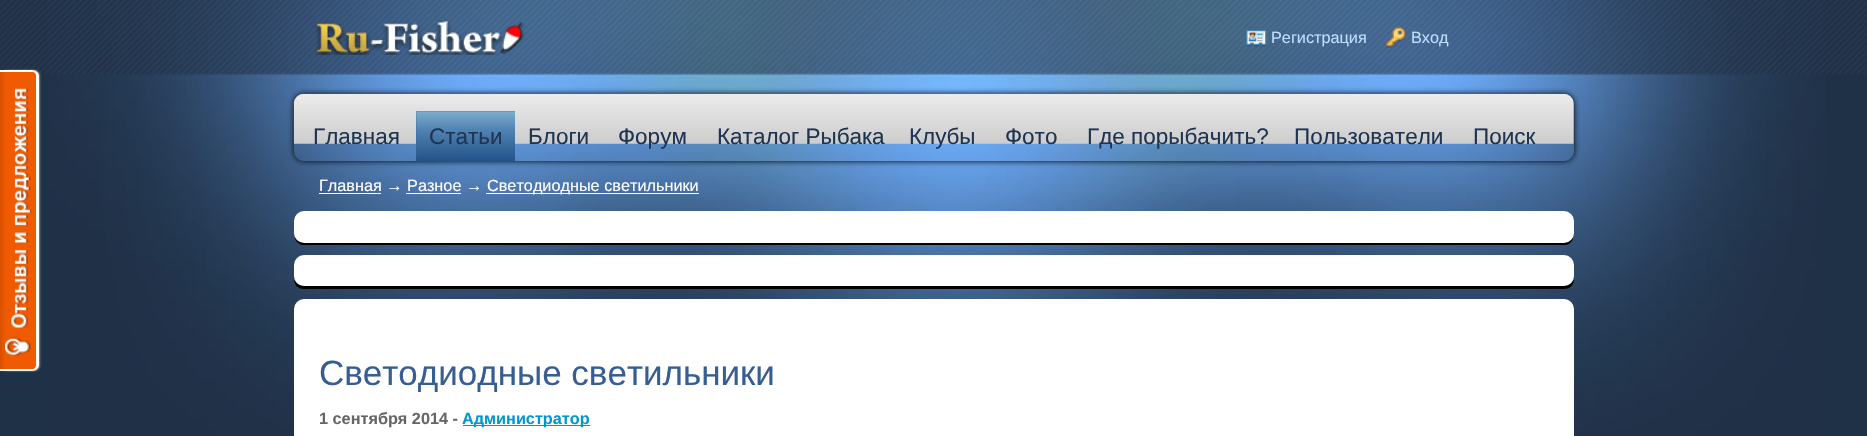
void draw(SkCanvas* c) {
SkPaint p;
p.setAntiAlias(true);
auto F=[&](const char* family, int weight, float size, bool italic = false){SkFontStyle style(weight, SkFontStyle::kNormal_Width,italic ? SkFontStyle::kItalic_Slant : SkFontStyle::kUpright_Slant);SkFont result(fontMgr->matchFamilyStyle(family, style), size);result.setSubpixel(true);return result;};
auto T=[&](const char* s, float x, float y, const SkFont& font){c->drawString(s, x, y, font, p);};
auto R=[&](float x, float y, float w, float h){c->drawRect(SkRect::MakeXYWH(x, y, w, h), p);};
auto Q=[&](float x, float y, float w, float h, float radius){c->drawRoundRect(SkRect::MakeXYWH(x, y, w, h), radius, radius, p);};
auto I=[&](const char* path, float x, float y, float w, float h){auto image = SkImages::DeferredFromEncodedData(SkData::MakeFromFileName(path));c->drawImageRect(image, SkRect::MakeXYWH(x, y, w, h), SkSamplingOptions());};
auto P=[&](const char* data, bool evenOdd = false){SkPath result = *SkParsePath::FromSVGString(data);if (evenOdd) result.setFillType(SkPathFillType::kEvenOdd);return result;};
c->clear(0xff1f3147);
I("1.png",47,0,1779,436);
I("4.png",0,0,1867,75);
p.setColor(0xff888888);
p.setMaskFilter(SkMaskFilter::MakeBlur(kNormal_SkBlurStyle, 1));
c->drawRoundRect(SkRect::MakeXYWH(1,70,39,301),6,6,p);
p.setMaskFilter(nullptr);
p.setColor(0xfff05a00);
c->drawPath(P("M0 70h33c3.5 0 6 2.5 6 6v289c0 3.5-2.5 6-6 6h-33z"),p);
I("2.png",0,72,5,297);
p.setColor(0xffffffff);
c->drawPath(P("M0 70h32c4 0 7 3 7 6v289c0 3-3 6-7 6h-32zm0 2h32c3 0 4 2 4 4v289c0 2-1 4-4 4h-32z",true),p);
I("3.png",5,88,26,268);
I("5.png",315,20,210,35);
I("6.png",1246,30,21,17);
auto f1 = F("Liberation Sans",400,16.25);
p.setColor(0xffbfdeff);
T("Регистрация",1271,43,f1);
I("7.png",1386,27,20,21);
T("Вход",1411,43,f1);
c->save();
c->clipPath(P("M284 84h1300v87h-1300zm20 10h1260c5.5 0 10 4.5 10 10v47c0 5.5-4.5 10-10 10h-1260c-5.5 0-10-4.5-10-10v-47c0-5.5 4.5-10 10-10z",true),true);
p.setColor(0xff000000);
p.setMaskFilter(SkMaskFilter::MakeBlur(kNormal_SkBlurStyle, 3));
c->drawRoundRect(SkRect::MakeXYWH(294,94,1280,67),10,10,p);
p.setMaskFilter(nullptr);
c->restore();
I("8.png",293,93,1281,51);
auto f2 = F("Liberation Sans",400,22.5);
p.setColor(0xff1f3451);
T("Главная",313,144,f2);
p.setColor(0xff375e93);
R(416,111,99,50);
I("9.png",416,111,99,50);
p.setColor(0xff1f3451);
T("Статьи",429,144,f2);
T("Блоги",528,144,f2);
T("Форум",618,144,f2);
T("Каталог Рыбака",717,144,f2);
T("Клубы",909,144,f2);
T("Фото",1005,144,f2);
T("Где порыбачить?",1087,144,f2);
T("Пользователи",1294,144,f2);
T("Поиск",1473,144,f2);
p.setColor(0xffffffff);
T("Главная → Разное →",319,191,f1);
R(319,193,62,1);
R(486,193,213,1);
T("Cветодиодные светильники",487,191,f1);
R(406,193,55,1);
p.setColor(0xff000000);
c->drawPath(P("M294 235l1 4c1 3 4 5 7 6h1262c9 0 10-8 10-15v-8v10c0 6-5 10-10 10h-1260c-5 0-9-3-10-7z"),p);
p.setColor(0xffffffff);
Q(294,211,1280,32,10);
p.setColor(0xff000000);
c->drawPath(P("M294 278v1c0 6 4 10 10 10h1260c6 0 10-4 10-10v-13v10c0 6-5 10-10 10h-1260c-5 0-9-3-10-8z"),p);
p.setColor(0xffffffff);
Q(294,255,1280,31,10);
Q(294,299,1280,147,10);
auto f3 = F("Liberation Sans",400,35);
p.setColor(0xff375e93);
T("Cветодиодные светильники",319,385,f3);
auto f4 = F("Liberation Sans",700,16.25);
p.setColor(0xff666666);
T("1 сентября 2014 -",319,424,f4);
p.setColor(0xff0099cc);
R(463,425,127,1);
T("Администратор",462,424,f4);
}
